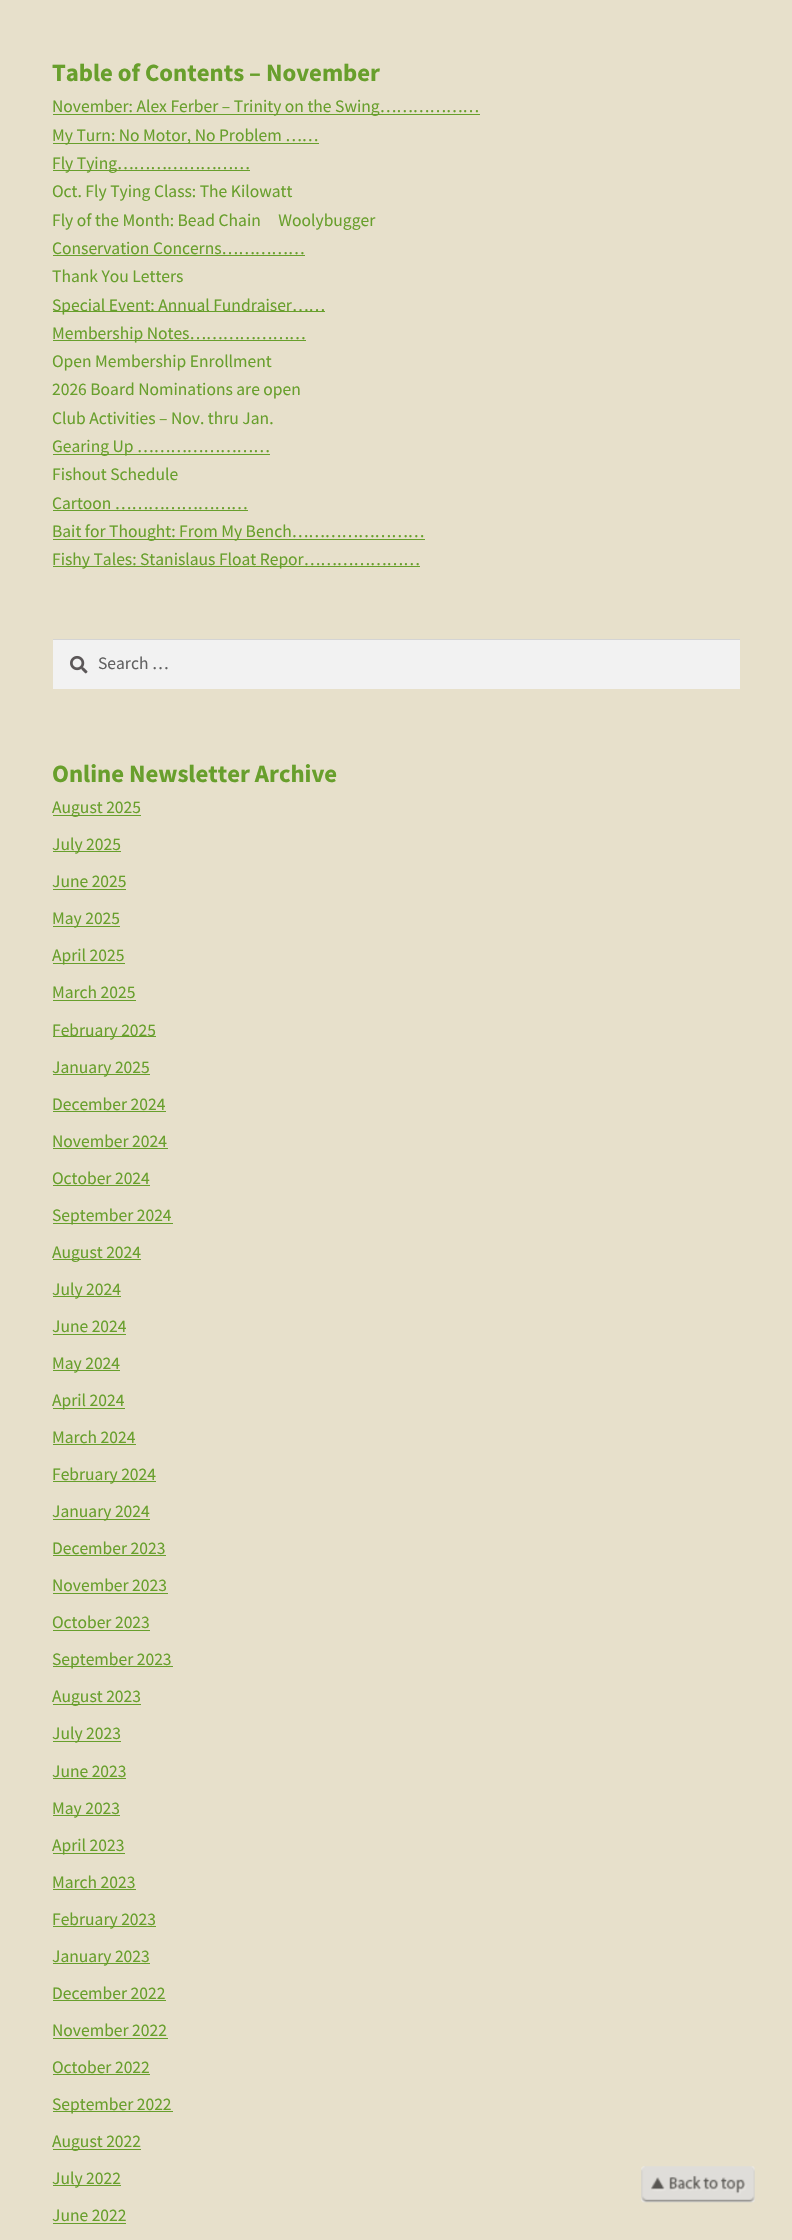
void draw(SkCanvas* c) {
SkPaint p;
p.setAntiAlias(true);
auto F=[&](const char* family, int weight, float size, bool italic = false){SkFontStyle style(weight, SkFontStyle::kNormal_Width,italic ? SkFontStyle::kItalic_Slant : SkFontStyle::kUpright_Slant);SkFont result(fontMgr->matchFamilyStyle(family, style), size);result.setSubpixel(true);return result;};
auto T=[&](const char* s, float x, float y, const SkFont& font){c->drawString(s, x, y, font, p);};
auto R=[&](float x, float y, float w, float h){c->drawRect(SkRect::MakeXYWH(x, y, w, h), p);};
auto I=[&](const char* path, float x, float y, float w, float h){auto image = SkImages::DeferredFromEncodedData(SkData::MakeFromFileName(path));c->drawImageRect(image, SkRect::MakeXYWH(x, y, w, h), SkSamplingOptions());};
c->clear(0xffe7e0cb);
auto f1 = F("Source Sans Pro",700,24.75);
p.setColor(0xff689f2c);
T("Table of Contents – November",52,81,f1);
R(53,114,427,1);
auto f2 = F("Source Sans Pro",400,17.5);
T("November: Alex Ferber – Trinity on the Swing………………",52,112,f2);
R(53,143,266,1);
T("My Turn: No Motor, No Problem ……",52,141,f2);
R(53,170,197,1);
T("Fly Tying……………………",52,169,f2);
T("Oct. Fly Tying Class: The Kilowatt",52,197,f2);
T("Fly of the Month: Bead Chain     Woolybugger",52,226,f2);
T("Conservation Concerns……………",52,254,f2);
R(53,255,252,1);
T("Thank You Letters",52,282,f2);
R(53,311,272,1);
T("Special Event: Annual Fundraiser……",52,311,f2);
R(53,340,253,1);
T("Membership Notes…………………",52,339,f2);
T("Open Membership Enrollment",52,367,f2);
T("2026 Board Nominations are open",52,395,f2);
T("Club Activities – Nov. thru Jan.",52,424,f2);
R(53,454,217,1);
T("Gearing Up ……………………",52,452,f2);
T("Fishout Schedule",52,480,f2);
T("Cartoon ……………………",52,509,f2);
R(53,510,195,1);
R(53,539,372,1);
T("Bait for Thought: From My Bench……………………",52,537,f2);
R(53,566,367,1);
T("Fishy Tales: Stanislaus Float Repor…………………",52,565,f2);
p.setColor(0xfff2f2f2);
R(53,640,687,49);
I("1.png",70,655,18,19);
p.setColor(0xffd4d4d4);
R(53,639,687,1);
p.setColor(0xff616161);
T("Search …",98,669,f2);
p.setColor(0xff689f2c);
T("Online Newsletter Archive",52,782,f1);
R(53,815,88,1);
T("August 2025",52,813,f2);
R(53,851,68,1);
T("July 2025",52,850,f2);
T("June 2025",52,887,f2);
R(53,889,73,1);
R(53,926,67,1);
T("May 2025",52,924,f2);
R(53,963,72,1);
T("April 2025",52,961,f2);
T("March 2025",52,998,f2);
R(53,1000,83,1);
R(53,1036,103,1);
T("February 2025",52,1036,f2);
R(53,1074,97,1);
T("January 2025",52,1073,f2);
T("December 2024",52,1110,f2);
R(53,1111,113,1);
T("November 2024",52,1147,f2);
R(53,1148,115,1);
T("October 2024",52,1184,f2);
R(53,1185,97,1);
R(53,1223,120,1);
T("September 2024",52,1221,f2);
R(53,1259,88,1);
T("August 2024",52,1258,f2);
R(53,1296,68,1);
T("July 2024",52,1295,f2);
T("June 2024",52,1332,f2);
R(53,1334,73,1);
R(53,1370,67,1);
T("May 2024",52,1369,f2);
R(53,1408,72,1);
T("April 2024",52,1406,f2);
T("March 2024",52,1443,f2);
R(53,1444,83,1);
R(53,1481,103,1);
T("February 2024",52,1480,f2);
R(53,1519,97,1);
T("January 2024",52,1517,f2);
T("December 2023",52,1554,f2);
R(53,1555,113,1);
T("November 2023",52,1591,f2);
R(53,1593,115,1);
T("October 2023",52,1628,f2);
R(53,1630,97,1);
R(53,1666,120,1);
T("September 2023",52,1665,f2);
R(53,1704,88,1);
T("August 2023",52,1702,f2);
R(53,1741,68,1);
T("July 2023",52,1739,f2);
T("June 2023",52,1777,f2);
R(53,1778,73,1);
R(53,1815,67,1);
T("May 2023",52,1814,f2);
R(53,1853,72,1);
T("April 2023",52,1851,f2);
T("March 2023",52,1888,f2);
R(53,1889,83,1);
R(53,1926,103,1);
T("February 2023",52,1925,f2);
R(53,1963,97,1);
T("January 2023",52,1962,f2);
T("December 2022",52,1999,f2);
R(53,2000,113,1);
T("November 2022",52,2036,f2);
R(53,2038,115,1);
T("October 2022",52,2073,f2);
R(53,2074,97,1);
R(53,2111,120,1);
T("September 2022",52,2110,f2);
R(53,2149,88,1);
T("August 2022",52,2147,f2);
R(53,2185,68,1);
T("July 2022",52,2184,f2);
T("June 2022",52,2221,f2);
R(53,2223,73,1);
I("2.png",641,2166,114,37);
}
